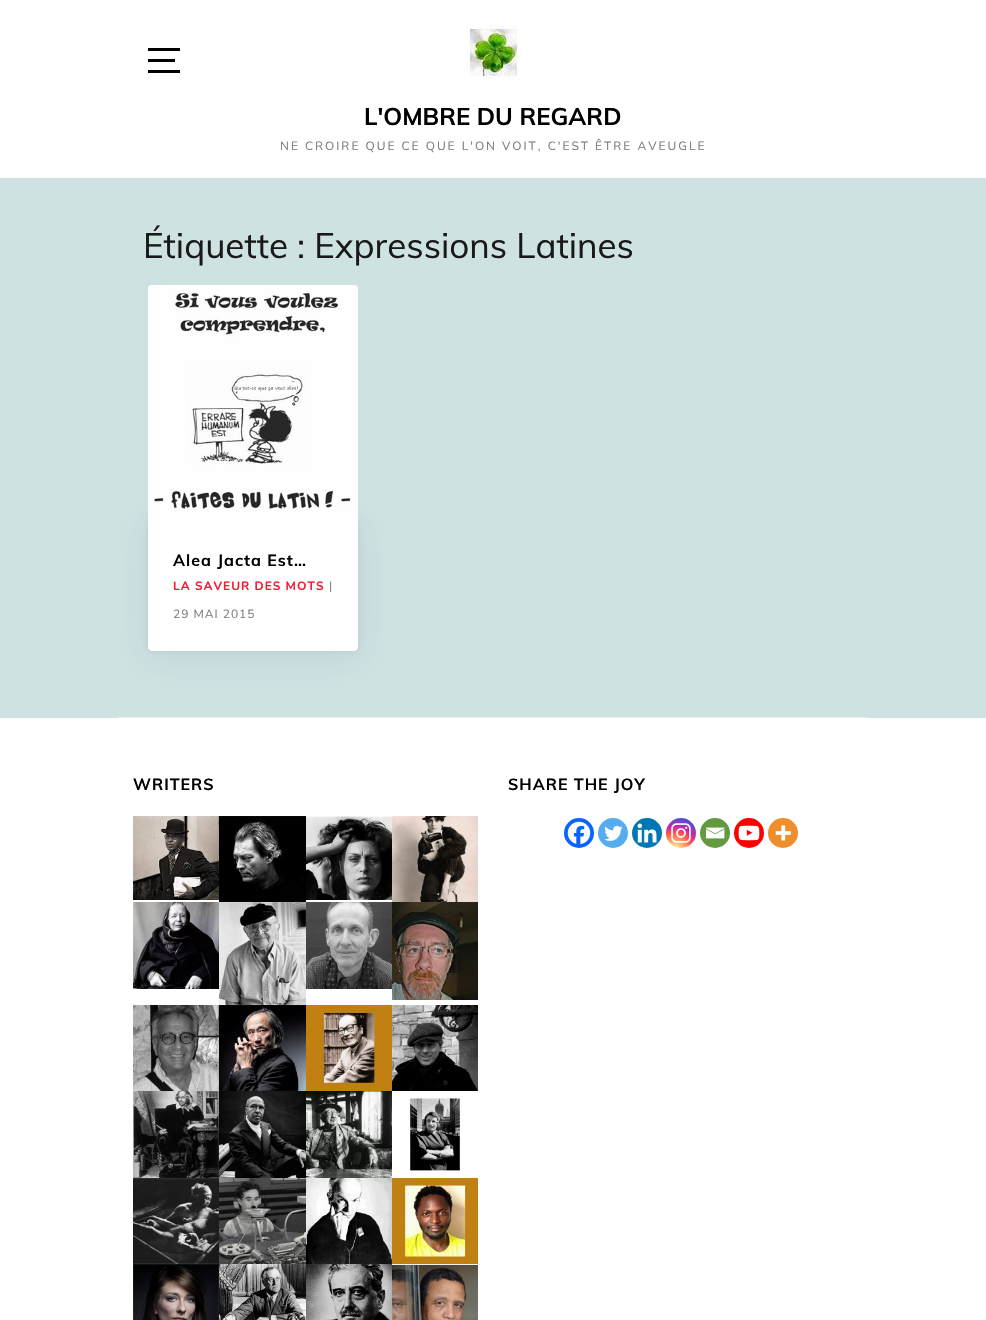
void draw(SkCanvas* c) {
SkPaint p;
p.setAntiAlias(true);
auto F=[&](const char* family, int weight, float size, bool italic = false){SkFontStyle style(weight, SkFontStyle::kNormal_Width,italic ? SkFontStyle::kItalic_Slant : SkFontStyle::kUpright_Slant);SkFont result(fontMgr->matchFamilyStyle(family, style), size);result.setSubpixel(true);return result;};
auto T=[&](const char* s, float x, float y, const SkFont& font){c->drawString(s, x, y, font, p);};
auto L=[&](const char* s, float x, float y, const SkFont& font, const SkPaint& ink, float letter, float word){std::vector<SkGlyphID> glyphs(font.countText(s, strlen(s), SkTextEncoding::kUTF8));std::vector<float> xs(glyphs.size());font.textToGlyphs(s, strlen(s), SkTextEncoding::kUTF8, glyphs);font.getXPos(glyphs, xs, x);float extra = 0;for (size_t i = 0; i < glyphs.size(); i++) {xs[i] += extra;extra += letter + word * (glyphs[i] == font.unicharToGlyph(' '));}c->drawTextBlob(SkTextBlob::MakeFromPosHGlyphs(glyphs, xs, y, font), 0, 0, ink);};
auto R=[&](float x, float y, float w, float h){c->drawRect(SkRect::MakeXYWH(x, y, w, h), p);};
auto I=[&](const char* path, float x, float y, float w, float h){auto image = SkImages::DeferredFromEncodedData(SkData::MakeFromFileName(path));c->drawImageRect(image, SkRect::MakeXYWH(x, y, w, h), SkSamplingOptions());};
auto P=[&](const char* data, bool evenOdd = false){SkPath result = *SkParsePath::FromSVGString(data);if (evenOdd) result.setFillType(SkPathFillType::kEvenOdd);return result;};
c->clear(0xffcee2e2);
p.setColor(0xffffffff);
R(0,0,986,178);
p.setColor(0xff000000);
R(148,59,27,3);
R(148,48,32,3);
R(148,70,32,3);
I("1.png",466,25,55,55);
auto f1 = F("Muli",700,24);
T("L'OMBRE DU REGARD",364,125,f1);
auto f2 = F("Nunito",400,12);
p.setColor(0xff7c7c7c);
L("NE CROIRE QUE CE QUE L'ON VOIT, C'EST ÊTRE AVEUGLE",280,150,f2,p,2,0);
p.setColor(0xffebebeb);
R(118,717,750,1);
auto f3 = F("Muli",400,35);
p.setColor(0xff191919);
T("Étiquette : Expressions Latines",143,258,f3);
p.setColor(0x12000000);
p.setMaskFilter(SkMaskFilter::MakeBlur(kNormal_SkBlurStyle, 2.5));
c->drawRoundRect(SkRect::MakeXYWH(148,519,210,132),4,4,p);
p.setMaskFilter(nullptr);
p.setColor(0x1a32325d);
p.setMaskFilter(SkMaskFilter::MakeBlur(kNormal_SkBlurStyle, 17.5));
c->drawRoundRect(SkRect::MakeXYWH(148,524,210,132),4,4,p);
p.setMaskFilter(nullptr);
I("2.png",148,285,210,234);
p.setColor(0xffffffff);
c->drawPath(P("M148 519h210v128c0 2-2 4-4 4h-202c-2 0-4-2-4-4z"),p);
auto f4 = F("Muli",700,16);
p.setColor(0xff000000);
L("Alea Jacta Est…",173,566,f4,p,1,0);
auto f5 = F("Nunito",700,12);
p.setColor(0xfff71c31);
L("LA SAVEUR DES MOTS",173,590,f5,p,1,0);
p.setColor(0xff7c7c7c);
L("|",329,590,f2,p,1,0);
L("29 MAI 2015",173,618,f2,p,1,0);
p.setColor(0xffffffff);
R(0,718,986,602);
p.setColor(0xff000000);
L("WRITERS",133,790,f4,p,1,0);
I("3.png",133,816,86,84);
I("4.png",219,816,87,86);
I("5.png",306,816,86,84);
I("6.png",392,816,86,86);
I("7.png",133,902,86,87);
I("8.png",219,902,87,103);
I("9.png",306,902,86,87);
I("10.png",392,902,86,98);
I("11.png",133,1005,86,86);
I("12.png",219,1005,87,86);
I("13.png",306,1005,86,86);
I("14.png",392,1005,86,86);
I("15.png",133,1091,86,87);
I("16.png",219,1091,87,87);
I("17.png",306,1091,86,87);
I("18.png",409,1097,52,77);
I("19.png",133,1178,86,86);
I("20.png",219,1178,87,86);
I("21.png",306,1178,86,86);
I("22.png",392,1178,86,86);
I("23.png",133,1264,86,56);
I("24.png",219,1264,87,56);
I("25.png",306,1264,86,56);
I("26.png",392,1264,86,56);
L("SHARE THE JOY",508,790,f4,p,1,0);
p.setColor(0xff0765fe);
c->drawCircle(579,833,15,p);
I("27.png",567,821,24,24);
p.setColor(0xff55acee);
c->drawCircle(613,833,15,p);
I("28.png",604,825,19,16);
p.setColor(0xff0077b5);
c->drawCircle(647,833,15,p);
I("29.png",637,823,20,20);
{
const SkColor colors[] = {0xfffdf497,0xfffdf497,0xfffd5949,0xffd6249f,0xff285aeb};
const float stops[] = {0,.05,.45,.6,.9};
p.setShader(SkGradientShader::MakeRadial({675,850}, 38, colors, stops, 5, SkTileMode::kClamp));
p.setAlpha(255);
}
c->drawCircle(681,833,15,p);
I("30.png",671,823,20,20);
p.setShader(nullptr);
p.setColor(0xff649a3f);
c->drawCircle(715,833,15,p);
I("31.png",706,827,19,12);
p.setColor(0xffff0000);
c->drawCircle(749,833,15,p);
I("32.png",738,825,22,16);
p.setColor(0xffee8e2d);
c->drawCircle(783,833,15,p);
I("33.png",775,825,16,16);
}
